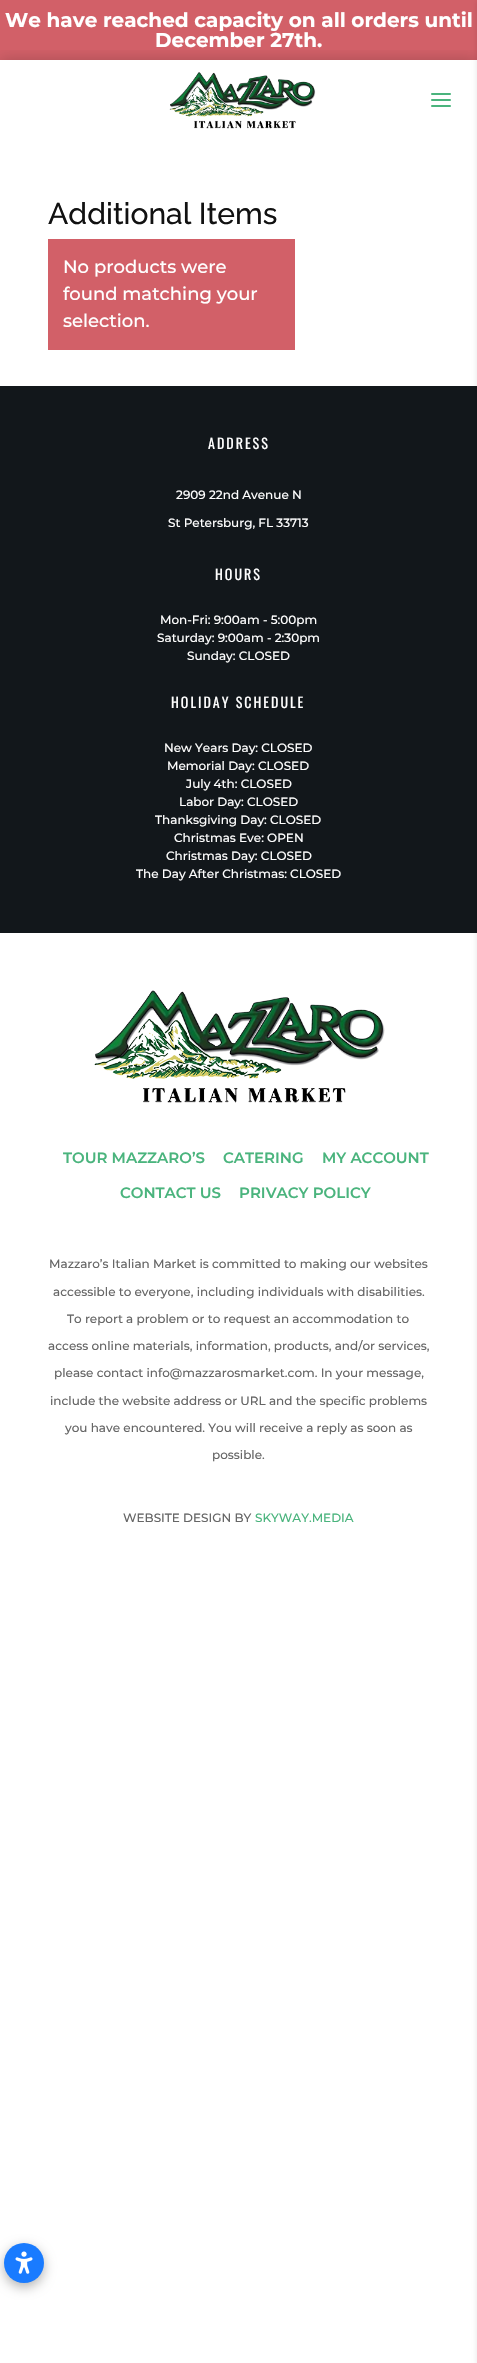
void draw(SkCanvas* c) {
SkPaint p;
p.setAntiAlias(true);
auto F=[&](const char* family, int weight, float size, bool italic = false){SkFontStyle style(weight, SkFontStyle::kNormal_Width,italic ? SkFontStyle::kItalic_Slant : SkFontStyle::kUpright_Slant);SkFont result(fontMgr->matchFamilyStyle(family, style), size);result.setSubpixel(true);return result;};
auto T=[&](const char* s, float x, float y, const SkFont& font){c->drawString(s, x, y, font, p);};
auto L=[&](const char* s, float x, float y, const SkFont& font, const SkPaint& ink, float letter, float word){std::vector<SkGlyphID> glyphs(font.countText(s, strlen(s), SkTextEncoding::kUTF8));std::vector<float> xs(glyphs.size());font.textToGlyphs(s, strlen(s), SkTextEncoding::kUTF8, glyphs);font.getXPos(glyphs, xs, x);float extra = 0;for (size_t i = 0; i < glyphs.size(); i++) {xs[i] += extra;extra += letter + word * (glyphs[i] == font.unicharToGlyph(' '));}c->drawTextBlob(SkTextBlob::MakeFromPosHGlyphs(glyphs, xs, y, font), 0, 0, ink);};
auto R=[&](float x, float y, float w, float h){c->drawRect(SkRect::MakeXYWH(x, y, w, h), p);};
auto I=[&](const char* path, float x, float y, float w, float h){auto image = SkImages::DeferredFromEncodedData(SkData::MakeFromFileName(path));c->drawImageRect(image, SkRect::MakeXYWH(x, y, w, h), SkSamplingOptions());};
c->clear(0xffffffff);
p.setColor(0xffd26068);
R(0,0,477,60);
c->save();
c->clipRect(SkRect::MakeXYWH(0,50,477,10));
p.setColor(0x33000000);
p.setMaskFilter(SkMaskFilter::MakeBlur(kNormal_SkBlurStyle, 7.5));
c->drawRect(SkRect::MakeXYWH(0,60,477,81),p);
p.setMaskFilter(nullptr);
c->restore();
I("1.png",169,72,147,57);
I("2.png",431,93,20,14);
p.setColor(0xffffffff);
R(0,141,477,12);
p.setColor(0xff12171b);
R(0,386,477,547);
p.setColor(0x1a000000);
p.setMaskFilter(SkMaskFilter::MakeBlur(kNormal_SkBlurStyle, 2.5));
c->drawRect(SkRect::MakeXYWH(477,2,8,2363),p);
p.setMaskFilter(nullptr);
auto f1 = F("Montserrat",100,20);
p.setColor(0xffffffff);
T("We have reached capacity on all orders until",5,27,f1);
T("December 27th.",155,47,f1);
auto f2 = F("Raleway",100,30);
p.setColor(0xff111111);
T("Additional Items",48,224,f2);
p.setColor(0xffd26068);
R(48,239,247,111);
auto f3 = F("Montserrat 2",100,18);
p.setColor(0xffffffff);
T("No products were",63,273,f3);
T("found matching your",63,300,f3);
T("selection.",63,327,f3);
auto f4 = F("Oswald",400,14);
L("ADDRESS",208,449,f4,p,2,0);
auto f5 = F("Montserrat 2",100,12);
T("2909 22nd Avenue N",176,499,f5);
T("St Petersburg, FL 33713",168,527,f5);
L("HOURS",215,580,f4,p,2,0);
T("Mon-Fri: 9:00am - 5:00pm",160,624,f5);
T("Saturday: 9:00am - 2:30pm",157,642,f5);
T("Sunday: CLOSED",187,660,f5);
L("HOLIDAY SCHEDULE",171,708,f4,p,2,0);
T("New Years Day: CLOSED",164,752,f5);
T("Memorial Day: CLOSED",167,770,f5);
T("July 4th: CLOSED",186,788,f5);
T("Labor Day: CLOSED",179,806,f5);
T("Thanksgiving Day: CLOSED",155,824,f5);
T("Christmas Eve: OPEN",174,842,f5);
T("Christmas Day: CLOSED",166,860,f5);
T("The Day After Christmas: CLOSED",136,878,f5);
I("3.png",94,990,291,113);
auto f6 = F("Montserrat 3",100,15);
p.setColor(0xff4ab47d);
T("TOUR MAZZARO’S",63,1163,f6);
T("CATERING",223,1163,f6);
T("MY ACCOUNT",322,1163,f6);
T("CONTACT US",120,1198,f6);
T("PRIVACY POLICY",239,1198,f6);
p.setColor(0xff666666);
T("Mazzaro’s Italian Market is committed to making our websites",49,1268,f5);
T("accessible to everyone, including individuals with disabilities.",53,1296,f5);
T("To report a problem or to request an accommodation to",67,1323,f5);
T("access online materials, information, products, and/or services,",48,1350,f5);
T("please contact info@mazzarosmarket.com. In your message,",54,1377,f5);
T("include the website address or URL and the specific problems",50,1405,f5);
T("you have encountered. You will receive a reply as soon as",65,1432,f5);
T("possible.",212,1459,f5);
T("WEBSITE DESIGN BY",123,1522,f5);
p.setColor(0xff4ab47d);
T("SKYWAY.MEDIA",255,1522,f5);
p.setColor(0x4d000000);
p.setMaskFilter(SkMaskFilter::MakeBlur(kNormal_SkBlurStyle, 6));
c->drawRoundRect(SkRect::MakeXYWH(4,2247,40,40),20,20,p);
p.setMaskFilter(nullptr);
p.setColor(0xff197bff);
c->drawCircle(24,2263,20,p);
I("4.png",15,2251,18,23);
}
